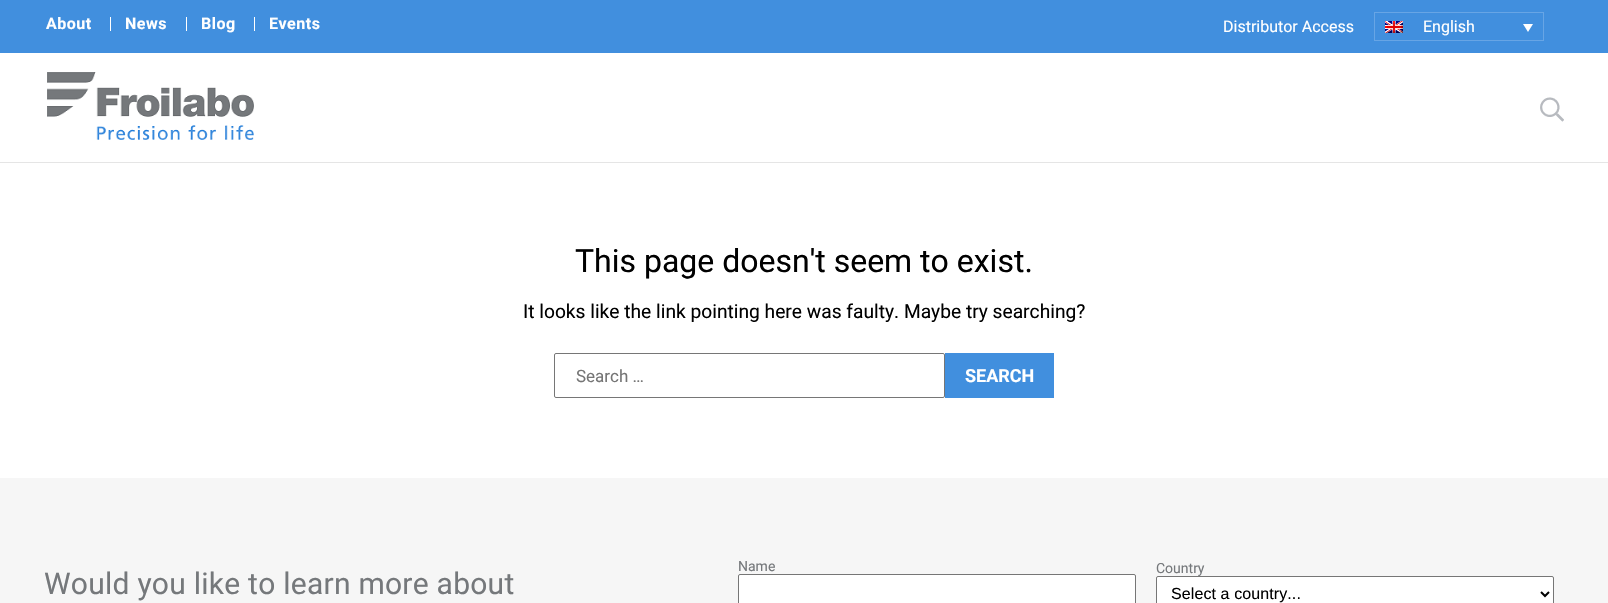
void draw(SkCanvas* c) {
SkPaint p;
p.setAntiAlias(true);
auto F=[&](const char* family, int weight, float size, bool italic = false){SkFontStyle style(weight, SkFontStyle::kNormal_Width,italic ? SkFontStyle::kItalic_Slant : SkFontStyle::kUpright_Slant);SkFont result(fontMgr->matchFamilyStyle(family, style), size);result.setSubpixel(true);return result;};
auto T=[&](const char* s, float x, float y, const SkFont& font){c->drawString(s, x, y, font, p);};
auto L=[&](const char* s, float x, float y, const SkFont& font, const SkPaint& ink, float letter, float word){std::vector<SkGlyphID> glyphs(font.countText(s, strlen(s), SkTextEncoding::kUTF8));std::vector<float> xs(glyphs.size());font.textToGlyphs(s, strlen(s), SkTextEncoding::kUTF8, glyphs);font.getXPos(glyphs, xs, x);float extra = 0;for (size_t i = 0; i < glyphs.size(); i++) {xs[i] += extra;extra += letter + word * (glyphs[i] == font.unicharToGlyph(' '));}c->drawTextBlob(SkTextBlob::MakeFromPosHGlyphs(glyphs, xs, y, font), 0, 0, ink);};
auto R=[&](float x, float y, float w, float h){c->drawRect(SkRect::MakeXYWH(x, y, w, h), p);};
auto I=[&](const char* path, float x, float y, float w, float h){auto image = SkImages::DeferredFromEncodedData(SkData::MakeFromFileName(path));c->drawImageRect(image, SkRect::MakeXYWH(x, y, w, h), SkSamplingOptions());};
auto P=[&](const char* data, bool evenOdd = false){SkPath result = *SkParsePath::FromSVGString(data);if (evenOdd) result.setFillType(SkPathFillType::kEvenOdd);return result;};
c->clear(0xffffffff);
c->save();
c->clipRect(SkRect::MakeXYWH(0,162,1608,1));
p.setColor(0x1a000000);
p.setMaskFilter(SkMaskFilter::MakeBlur(kNormal_SkBlurStyle, .5));
c->drawRect(SkRect::MakeXYWH(0,1,1608,162),p);
p.setMaskFilter(nullptr);
c->restore();
p.setColor(0xff418fde);
R(0,0,1608,53);
auto f1 = F("Roboto",700,16);
p.setColor(0xffffffff);
L("About",46,29,f1,p,.5,0);
R(110,17,1,14);
L("News",125,29,f1,p,.5,0);
R(186,17,1,14);
L("Blog",201,29,f1,p,.5,0);
R(254,17,1,14);
L("Events",269,29,f1,p,.5,0);
auto f2 = F("Roboto",400,16);
T("Distributor Access",1223,32,f2);
p.setStroke(true);
p.setStrokeWidth(1);
p.setColor(0xff67a5e5);
c->drawRect(SkRect::MakeXYWH(1374.5,12.5,169,28),p);
I("1.png",1385,21,18,12);
p.setStroke(false);
p.setColor(0xffffffff);
T("English",1423,32,f2);
c->drawPath(P("M1523 24h10l-5 8z"),p);
I("2.png",47,72,207,68);
I("3.png",1540,97,24,25);
auto f3 = F("Roboto",400,32);
p.setColor(0xff000000);
T("This page doesn't seem to exist.",575,272,f3);
auto f4 = F("Roboto",400,19.2);
T("It looks like the link pointing here was faulty. Maybe try searching?",523,318,f4);
p.setStroke(true);
p.setColor(0xff767676);
c->drawRoundRect(SkRect::MakeXYWH(554.5,353.5,390,44),1.5,1.5,p);
auto f5 = F("Roboto",400,17);
p.setStroke(false);
p.setColor(0xff757575);
T("Search …",576,382,f5);
p.setColor(0xff418fde);
R(945,353,109,45);
auto f6 = F("Roboto",700,18);
p.setColor(0xffffffff);
T("SEARCH",965,382,f6);
p.setColor(0xfff6f6f6);
R(0,478,1608,125);
auto f7 = F("Roboto",400,30);
p.setColor(0xff75787b);
L("Would you like to learn more about",44,594,f7,p,.25,0);
auto f8 = F("Roboto",400,14);
T("Name",738,571,f8);
p.setColor(0xffffffff);
c->drawRoundRect(SkRect::MakeXYWH(738.5,574.5,397,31),1.5,1.5,p);
p.setStroke(true);
p.setColor(0xff767676);
c->drawRoundRect(SkRect::MakeXYWH(738.5,574.5,397,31),1.5,1.5,p);
p.setStroke(false);
p.setColor(0xff75787b);
T("Country",1156,573,f8);
p.setColor(0xffffffff);
c->drawRoundRect(SkRect::MakeXYWH(1156.5,576.5,397,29),1.5,1.5,p);
p.setStroke(true);
p.setColor(0xff767676);
c->drawRoundRect(SkRect::MakeXYWH(1156.5,576.5,397,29),1.5,1.5,p);
p.setStrokeWidth(2);
p.setColor(0xff000000);
c->drawPath(P("M1541 592l4 4l4-4"),p);
auto f9 = F("Liberation Sans",400,16);
p.setStroke(false);
L("Select a country...",1171,599,f9,p,.1,0);
}
